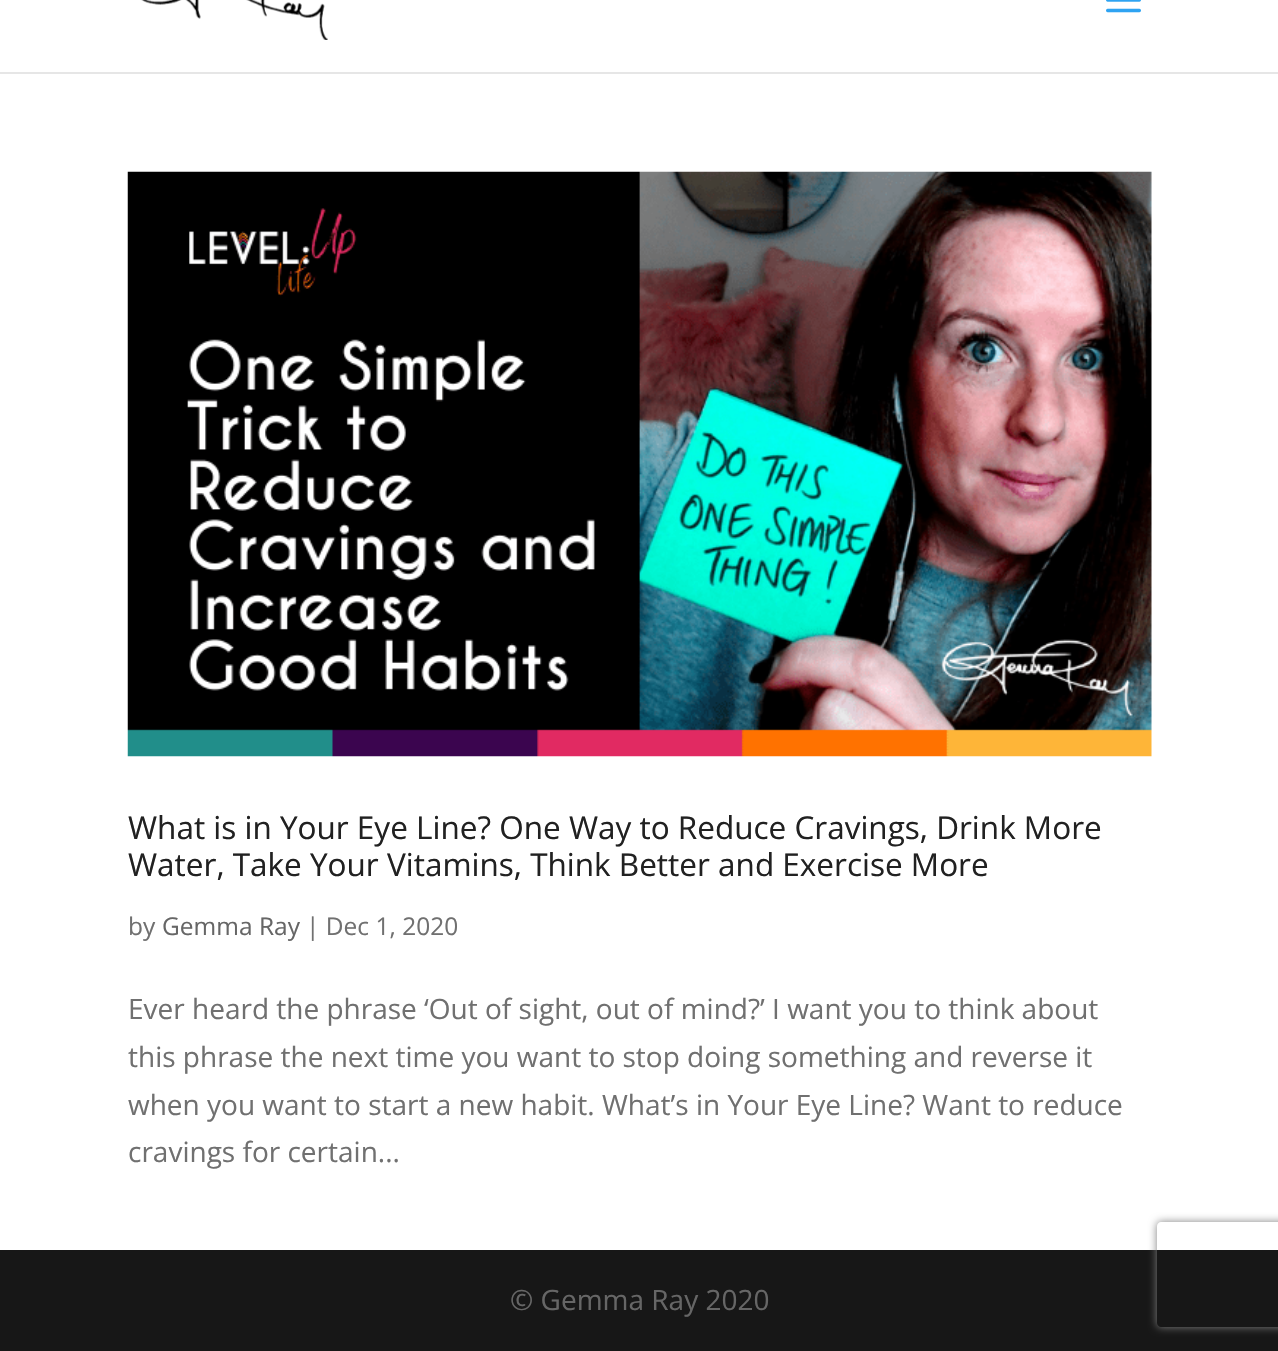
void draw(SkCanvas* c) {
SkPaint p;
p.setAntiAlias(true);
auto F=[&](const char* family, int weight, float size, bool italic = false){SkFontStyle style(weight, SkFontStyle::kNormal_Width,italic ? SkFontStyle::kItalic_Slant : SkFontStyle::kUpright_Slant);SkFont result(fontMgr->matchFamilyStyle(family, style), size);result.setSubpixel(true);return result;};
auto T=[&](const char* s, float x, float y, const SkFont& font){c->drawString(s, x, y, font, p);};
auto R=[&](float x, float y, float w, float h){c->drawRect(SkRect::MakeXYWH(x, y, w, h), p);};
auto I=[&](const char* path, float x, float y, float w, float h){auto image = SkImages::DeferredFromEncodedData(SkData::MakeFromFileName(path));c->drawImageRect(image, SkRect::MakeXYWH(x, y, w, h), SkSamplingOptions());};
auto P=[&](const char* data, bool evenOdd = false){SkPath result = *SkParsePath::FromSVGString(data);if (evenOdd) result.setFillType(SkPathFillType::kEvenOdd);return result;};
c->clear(0xffffffff);
p.setColor(0xffe6e6e6);
R(0,72,1278,2);
I("1.png",141,0,187,40);
I("2.png",1106,0,35,13);
I("3.png",127,171,1025,586);
auto f1 = F("Open Sans",400,31.5);
p.setColor(0xff212121);
T("What is in Your Eye Line? One Way to Reduce Cravings, Drink More",128,839,f1);
T("Water, Take Your Vitamins, Think Better and Exercise More",128,876,f1);
auto f2 = F("Open Sans",400,24.5);
p.setColor(0xff707070);
T("by",128,935,f2);
p.setColor(0xff666666);
T("Gemma Ray",162,935,f2);
p.setColor(0xff707070);
T("| Dec 1, 2020",306,935,f2);
auto f3 = F("Open Sans",400,28);
T("Ever heard the phrase ‘Out of sight, out of mind?’ I want you to think about",128,1019,f3);
T("this phrase the next time you want to stop doing something and reverse it",128,1067,f3);
T("when you want to start a new habit. What’s in Your Eye Line? Want to reduce",128,1115,f3);
T("cravings for certain...",128,1162,f3);
p.setColor(0xff171717);
R(0,1250,1278,101);
p.setColor(0xff666666);
T("© Gemma Ray 2020",510,1310,f3);
c->save();
c->clipPath(P("M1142 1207h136v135h-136zm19 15h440c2 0 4 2 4 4v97c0 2-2 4-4 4h-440c-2 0-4-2-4-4v-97c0-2 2-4 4-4z",true),true);
p.setColor(0xff808080);
p.setMaskFilter(SkMaskFilter::MakeBlur(kNormal_SkBlurStyle, 4.5));
c->drawRoundRect(SkRect::MakeXYWH(1157,1222,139,105),4,4,p);
p.setMaskFilter(nullptr);
c->restore();
}
